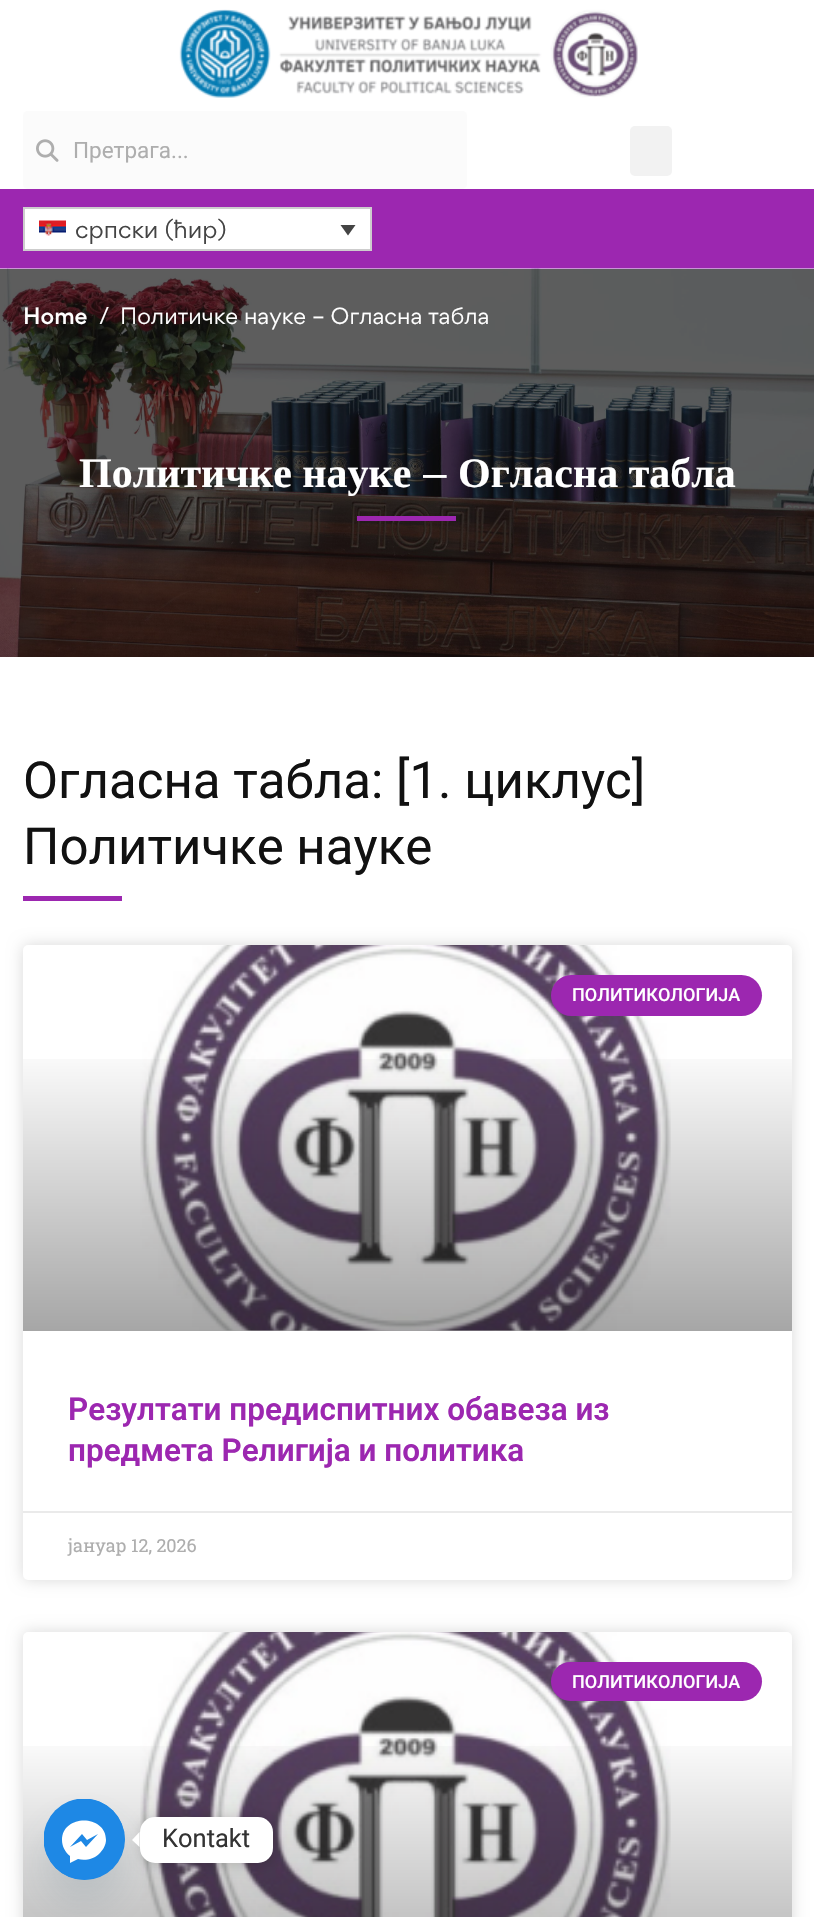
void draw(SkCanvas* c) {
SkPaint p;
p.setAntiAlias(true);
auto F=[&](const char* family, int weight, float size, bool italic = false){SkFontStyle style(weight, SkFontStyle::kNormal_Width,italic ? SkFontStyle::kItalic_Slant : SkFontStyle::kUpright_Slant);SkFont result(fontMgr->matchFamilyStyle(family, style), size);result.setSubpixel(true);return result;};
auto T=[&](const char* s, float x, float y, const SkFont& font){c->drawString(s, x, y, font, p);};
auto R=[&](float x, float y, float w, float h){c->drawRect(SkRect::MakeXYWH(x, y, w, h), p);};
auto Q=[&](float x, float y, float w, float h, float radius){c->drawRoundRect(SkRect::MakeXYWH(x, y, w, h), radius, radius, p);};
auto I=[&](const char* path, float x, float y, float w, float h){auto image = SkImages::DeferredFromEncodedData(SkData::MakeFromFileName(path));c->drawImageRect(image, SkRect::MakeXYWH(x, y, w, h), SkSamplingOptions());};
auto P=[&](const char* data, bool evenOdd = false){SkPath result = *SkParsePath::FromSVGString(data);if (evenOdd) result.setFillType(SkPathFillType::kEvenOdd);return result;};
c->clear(0xffffffff);
I("1.png",179,9,459,89);
p.setColor(0xfffbfbfb);
Q(23,111,444,78,5);
I("2.png",36,139,23,23);
auto f1 = F("Roboto",400,22.5);
p.setColor(0xffaeaeae);
T("Претрага...",73,158,f1);
p.setColor(0xfff2f2f2);
Q(630,126,42,50,5);
p.setColor(0xff9c27b0);
R(0,189,814,80);
p.setColor(0xffffffff);
c->drawRect(SkRect::MakeXYWH(24,208,347,42),p);
p.setStroke(true);
p.setStrokeWidth(2);
p.setColor(0xffcdcdcd);
c->drawRect(SkRect::MakeXYWH(24,208,347,42),p);
I("3.png",39,220,27,16);
auto f2 = F("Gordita",400,22.5);
p.setStroke(false);
p.setColor(0xff444444);
T("српски (ћир)",75,238,f2);
c->drawPath(P("M340.5 225h15l-7.5 10.5z"),p);
I("4.png",0,268,814,389);
auto f3 = F("Gordita",500,21);
p.setColor(0xffffffff);
T("Home",23,324,f3);
auto f4 = F("Gordita",400,21);
T("/",99,324,f4);
T("Политичке науке – Огласна табла",120,324,f4);
auto f5 = F("Liberation Serif",700,42);
T("Политичке науке",79,487,f5);
auto f6 = F("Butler",700,42);
T("–",423,487,f6);
T("Огласна табла",458,487,f5);
p.setColor(0xff9c27b0);
R(357,516,99,5);
auto f7 = F("Roboto",400,51);
p.setColor(0xff111111);
T("Огласна табла: [1. циклус]",23,798,f7);
T("Политичке науке",23,864,f7);
p.setColor(0xff9c27b0);
R(23,896,99,5);
p.setColor(0x26000000);
p.setMaskFilter(SkMaskFilter::MakeBlur(kNormal_SkBlurStyle, 7.5));
c->drawRoundRect(SkRect::MakeXYWH(23,945,769,635),5,5,p);
p.setMaskFilter(nullptr);
p.setColor(0xffffffff);
Q(23,945,769,635,5);
I("5.png",140,945,531,386);
{
const SkColor colors[] = {0x59000000,0x00000000};
const float stops[] = {0,.75};
const SkPoint ends[] = {{407,1331}, {407,945}};
p.setShader(SkGradientShader::MakeLinear(ends, colors, stops, 2, SkTileMode::kClamp));
p.setAlpha(255);
}
R(23,1059,769,272);
p.setShader(nullptr);
p.setColor(0xff9c27b0);
Q(551,975,211,41,20.5);
auto f8 = F("Roboto",500,18);
p.setColor(0xffffffff);
T("ПОЛИТИКОЛОГИЈА",572,1001,f8);
auto f9 = F("Roboto",600,31.5);
p.setColor(0xff9c27b0);
T("Резултати предиспитних обавеза из",68,1420,f9);
T("предмета Религија и политика",68,1461,f9);
p.setColor(0xffeaeaea);
R(23,1511,769,2);
auto f10 = F("Roboto Slab",400,18);
p.setColor(0xffaeaeae);
T("јануар 12, 2026",68,1552,f10);
p.setColor(0x26000000);
p.setMaskFilter(SkMaskFilter::MakeBlur(kNormal_SkBlurStyle, 7.5));
c->drawRoundRect(SkRect::MakeXYWH(23,1632,769,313),5,5,p);
p.setMaskFilter(nullptr);
p.setColor(0xffffffff);
Q(23,1632,769,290,5);
I("6.png",140,1632,531,285);
{
const SkColor colors[] = {0x59000000,0x00000000};
const float stops[] = {0,.75};
const SkPoint ends[] = {{407,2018}, {407,1632}};
p.setShader(SkGradientShader::MakeLinear(ends, colors, stops, 2, SkTileMode::kClamp));
p.setAlpha(255);
}
R(23,1746,769,171);
p.setShader(nullptr);
p.setColor(0xff9c27b0);
Q(551,1662,211,39,19.5);
p.setColor(0xffffffff);
T("ПОЛИТИКОЛОГИЈА",572,1688,f8);
p.setColor(0x2949687e);
p.setMaskFilter(SkMaskFilter::MakeBlur(kNormal_SkBlurStyle, 18));
c->drawRoundRect(SkRect::MakeXYWH(44,1823,81,81),40.5,40.5,p);
p.setMaskFilter(nullptr);
p.setColor(0xff1e88e5);
c->drawCircle(84.5,1839.5,40.5,p);
c->save();
c->clipRect(SkRect::MakeXYWH(44,1799,81,81));
c->drawCircle(84,1839,40.5,p);
c->restore();
p.setColor(0xffffffff);
c->drawPath(P("M62 1840c0-26 44-26 44 0c0 5-3 10-7 14c-5 5-14 7-21 5l-8 4v-7c-5-4-8-10-8-16zm19 1l5 6l12-13l-11 6l-5-6l-12 13z",true),p);
p.setColor(0x26000000);
p.setMaskFilter(SkMaskFilter::MakeBlur(kNormal_SkBlurStyle, 6));
c->drawRoundRect(SkRect::MakeXYWH(140,1818,133,47),15,15,p);
p.setMaskFilter(nullptr);
p.setColor(0xffffffff);
Q(140,1817,133,46,15);
c->drawPath(P("M139.5 1832v15l-7.5-7z"),p);
auto f11 = F("Roboto",400,25.5);
p.setColor(0xff333333);
T("Kontakt",162,1847,f11);
}
